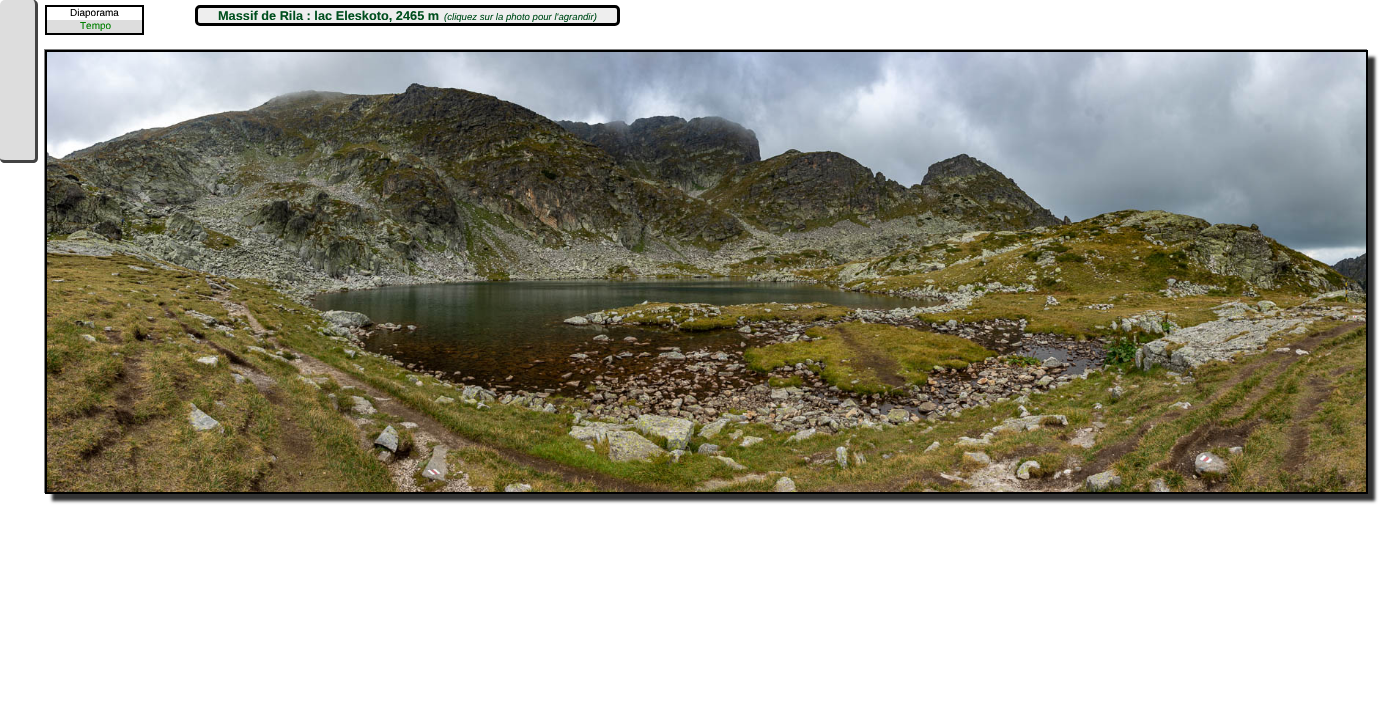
void draw(SkCanvas* c) {
SkPaint p;
p.setAntiAlias(true);
auto F=[&](const char* family, int weight, float size, bool italic = false){SkFontStyle style(weight, SkFontStyle::kNormal_Width,italic ? SkFontStyle::kItalic_Slant : SkFontStyle::kUpright_Slant);SkFont result(fontMgr->matchFamilyStyle(family, style), size);result.setSubpixel(true);return result;};
auto T=[&](const char* s, float x, float y, const SkFont& font){c->drawString(s, x, y, font, p);};
auto R=[&](float x, float y, float w, float h){c->drawRect(SkRect::MakeXYWH(x, y, w, h), p);};
auto Q=[&](float x, float y, float w, float h, float radius){c->drawRoundRect(SkRect::MakeXYWH(x, y, w, h), radius, radius, p);};
auto I=[&](const char* path, float x, float y, float w, float h){auto image = SkImages::DeferredFromEncodedData(SkData::MakeFromFileName(path));c->drawImageRect(image, SkRect::MakeXYWH(x, y, w, h), SkSamplingOptions());};
auto P=[&](const char* data, bool evenOdd = false){SkPath result = *SkParsePath::FromSVGString(data);if (evenOdd) result.setFillType(SkPathFillType::kEvenOdd);return result;};
c->clear(0xffffffff);
p.setColor(0xffdddddd);
Q(0,0,38,163,5);
p.setColor(0xff434343);
c->drawPath(P("M5 0h28c3 0 5 2 5 5v153c0 3-2 5-5 5h-28c-3 0-5-2-5-5v-153c0-3 2-5 5-5zm0 0h28c1 0 2 2 2 5v153c0 1-1 2-2 2h-28c-3 0-5-1-5-2v-153c0-3 2-5 5-5z",true),p);
p.setColor(0xff000000);
R(45,5,99,2);
R(142,5,2,30);
R(45,5,2,15);
auto f1 = F("Liberation Sans",400,10);
T("Diaporama",70,16,f1);
p.setColor(0xffeeeeee);
c->drawRoundRect(SkRect::MakeXYWH(196.5,6.5,422,18),3.5,3.5,p);
p.setStroke(true);
p.setStrokeWidth(3);
p.setColor(0xff000000);
c->drawRoundRect(SkRect::MakeXYWH(196.5,6.5,422,18),3.5,3.5,p);
auto f2 = F("Liberation Sans",700,12.75);
p.setStroke(false);
p.setColor(0xff004f1e);
T("Massif de Rila : lac Eleskoto, 2465 m",218,20,f2);
auto f3 = F("Liberation Sans",400,9.6,true);
T("(cliquez sur la photo pour l'agrandir)",444,20,f3);
p.setColor(0xffdddddd);
R(47,20,95,13);
p.setColor(0xff000000);
R(45,33,99,2);
R(45,20,2,15);
p.setColor(0xff008000);
T("Tempo",80,29,f1);
p.setColor(0xff323232);
p.setMaskFilter(SkMaskFilter::MakeBlur(kNormal_SkBlurStyle, 1.5));
c->drawRect(SkRect::MakeXYWH(52,57,1323,444),p);
p.setMaskFilter(nullptr);
p.setColor(0xff808080);
c->drawPath(P("M44 49v444h1v-443h1322v-1z"),p);
p.setStroke(true);
p.setStrokeWidth(2);
p.setColor(0xff000000);
c->drawRect(SkRect::MakeXYWH(46,51,1321,442),p);
I("1.png",47,52,1319,440);
}
